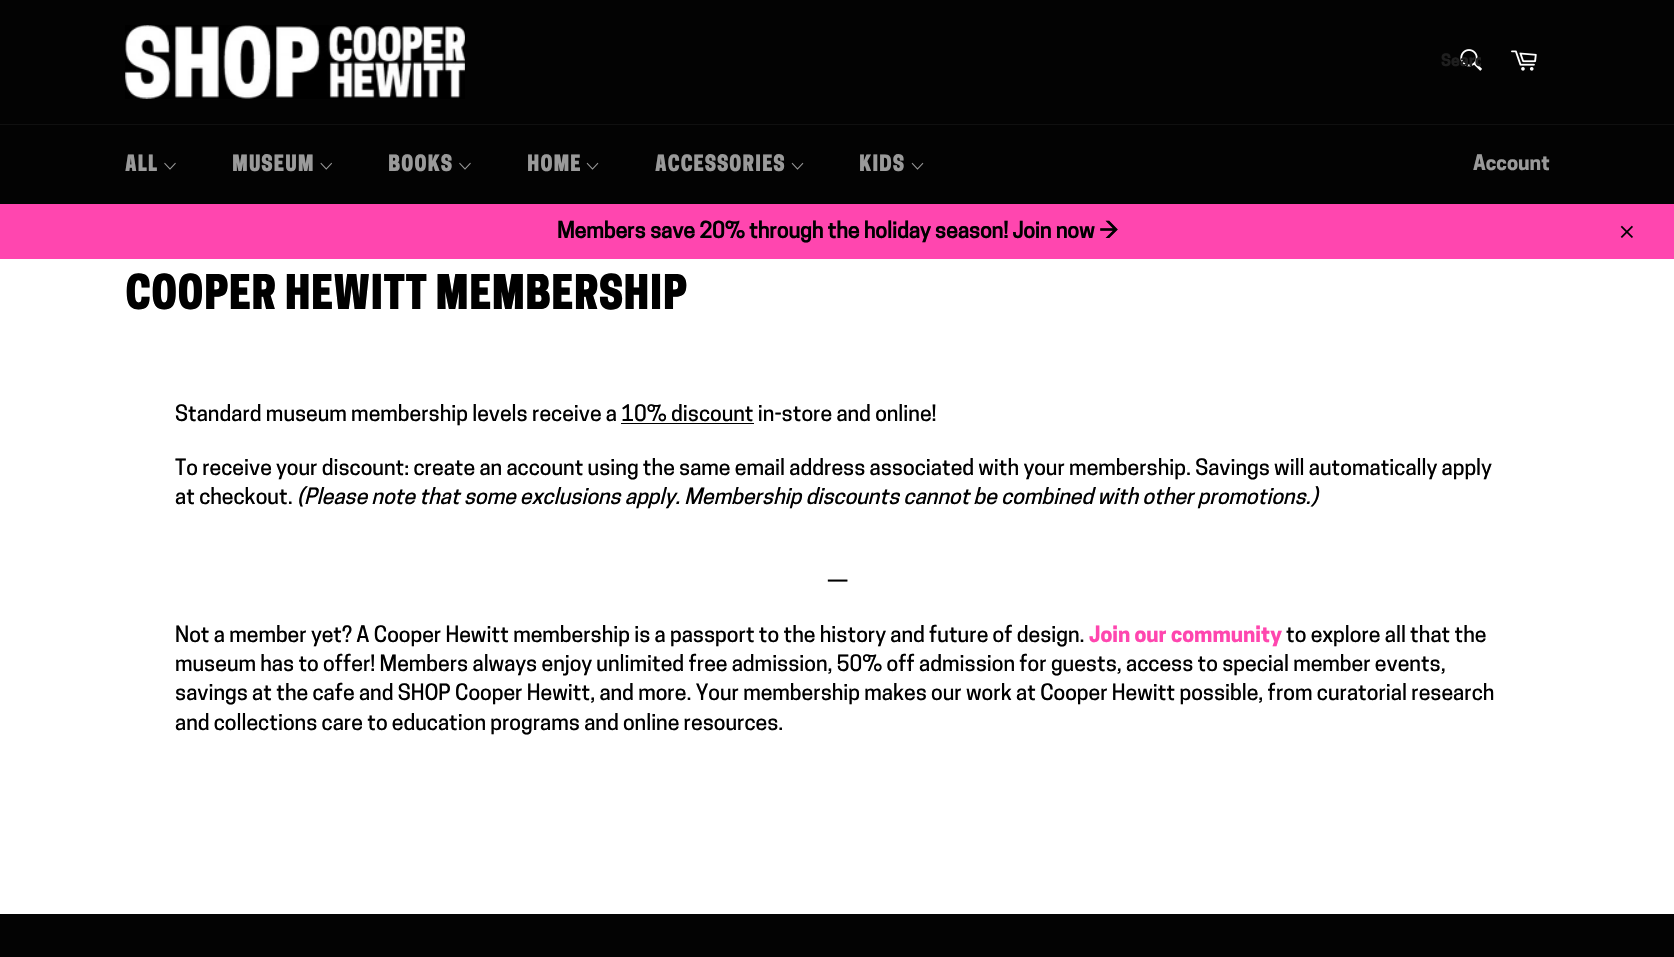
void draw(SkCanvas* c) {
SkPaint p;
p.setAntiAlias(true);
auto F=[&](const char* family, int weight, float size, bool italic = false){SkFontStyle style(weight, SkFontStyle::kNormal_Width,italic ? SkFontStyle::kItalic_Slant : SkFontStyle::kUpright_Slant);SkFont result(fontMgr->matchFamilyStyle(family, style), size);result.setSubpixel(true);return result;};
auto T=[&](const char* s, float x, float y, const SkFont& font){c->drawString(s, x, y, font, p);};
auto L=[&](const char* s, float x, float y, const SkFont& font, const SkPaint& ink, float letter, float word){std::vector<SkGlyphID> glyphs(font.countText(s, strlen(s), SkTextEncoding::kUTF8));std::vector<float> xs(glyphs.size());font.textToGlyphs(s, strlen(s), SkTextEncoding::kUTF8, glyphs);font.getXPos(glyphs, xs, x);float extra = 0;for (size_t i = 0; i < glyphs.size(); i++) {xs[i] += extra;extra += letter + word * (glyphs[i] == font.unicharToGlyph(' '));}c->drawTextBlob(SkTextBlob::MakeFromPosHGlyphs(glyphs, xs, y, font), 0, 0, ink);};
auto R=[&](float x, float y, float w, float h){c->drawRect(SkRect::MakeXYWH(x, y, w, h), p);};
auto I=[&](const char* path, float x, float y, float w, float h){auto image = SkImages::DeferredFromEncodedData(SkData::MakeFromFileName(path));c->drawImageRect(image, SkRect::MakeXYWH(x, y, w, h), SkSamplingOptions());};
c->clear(0xffffffff);
p.setColor(0xff030303);
R(0,0,1674,124);
I("1.png",125,25,340,74);
I("2.png",1460,49,22,22);
c->save();
c->clipRect(SkRect::MakeXYWH(1441,51,40,22));
auto f1 = F("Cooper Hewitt",700,16);
p.setColor(0xff1f1f1f);
T("Searc",1441,66,f1);
c->restore();
I("3.png",1511,50,26,21);
p.setColor(0xff030303);
R(0,125,1674,79);
p.setColor(0xff101010);
R(0,124,1674,1);
auto f2 = F("Cooper Hewitt",900,21.25);
p.setColor(0xff9a9a9a);
L("ALL",125,171,f2,p,.75,0);
I("4.png",164,162,12,8);
L("MUSEUM",232,171,f2,p,.75,0);
I("5.png",320,162,12,8);
L("BOOKS",388,171,f2,p,.75,0);
I("4.png",459,162,12,8);
L("HOME",527,171,f2,p,.75,0);
I("6.png",586,162,13,8);
L("ACCESSORIES",655,171,f2,p,.75,0);
I("6.png",791,162,13,8);
L("KIDS",859,171,f2,p,.75,0);
I("6.png",911,162,13,8);
auto f3 = F("Cooper Hewitt",700,20);
T("Account",1473,170,f3);
p.setColor(0xffff46af);
R(0,204,1674,55);
auto f4 = F("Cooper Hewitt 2",700,21.25);
p.setColor(0xff000000);
T("Members save 20% through the holiday season! Join now →",557,238,f4);
I("7.png",1620,225,13,13);
auto f5 = F("Cooper Hewitt",900,45);
T("COOPER HEWITT MEMBERSHIP",125,309,f5);
auto f6 = F("Cooper Hewitt",500,21.25);
T("Standard museum membership levels receive a 10% discount in-store and online!",175,421,f6);
R(621,423,133,1);
T("To receive your discount: create an account using the same email address associated with your membership. Savings will automatically apply",175,475,f6);
T("at checkout.",175,504,f6);
auto f7 = F("Cooper Hewitt",500,21.25,true);
T("(Please note that some exclusions apply. Membership discounts cannot be combined with other promotions.)",297,504,f7);
T("—",827,588,f6);
T("Not a member yet? A Cooper Hewitt membership is a passport to the history and future of design.",175,642,f6);
auto f8 = F("Cooper Hewitt",700,21.25);
p.setColor(0xffff46af);
T("Join our community",1089,642,f8);
p.setColor(0xff000000);
T("to explore all that the",1286,642,f6);
T("museum has to offer! Members always enjoy unlimited free admission, 50% off admission for guests, access to special member events,",175,671,f6);
T("savings at the cafe and SHOP Cooper Hewitt, and more. Your membership makes our work at Cooper Hewitt possible, from curatorial research",175,700,f6);
T("and collections care to education programs and online resources.",175,730,f6);
p.setColor(0xff030303);
R(0,914,1674,43);
}
